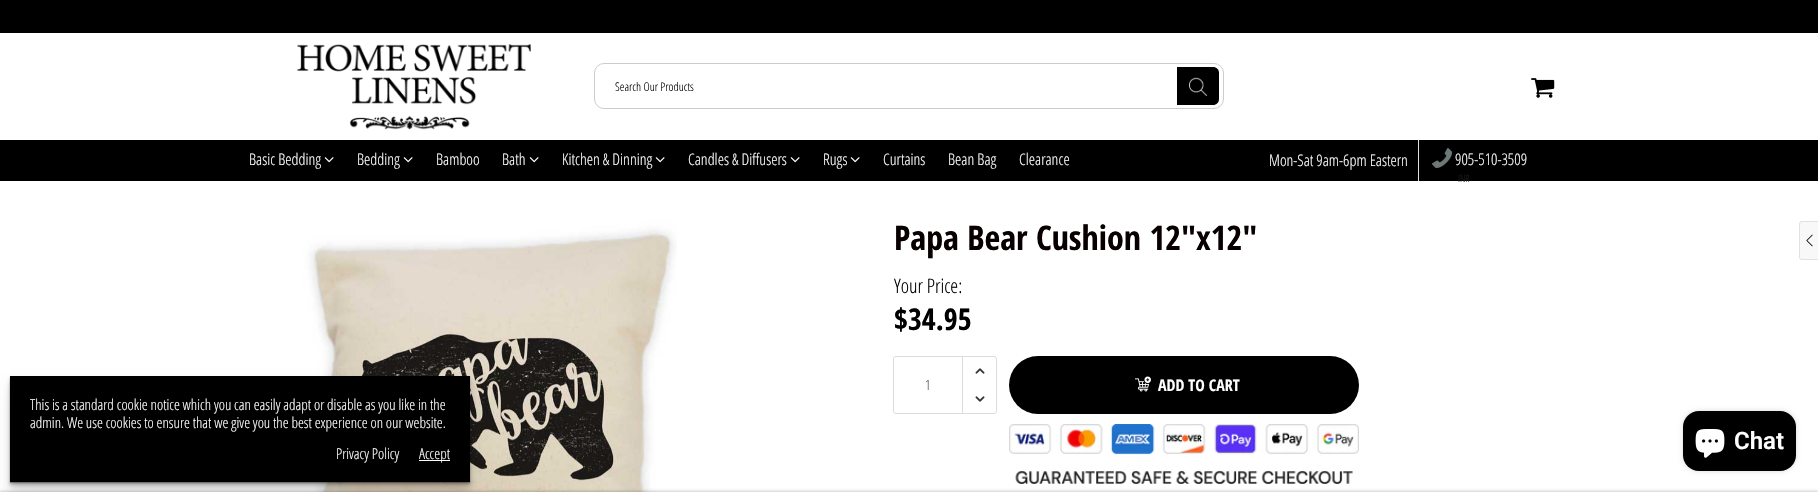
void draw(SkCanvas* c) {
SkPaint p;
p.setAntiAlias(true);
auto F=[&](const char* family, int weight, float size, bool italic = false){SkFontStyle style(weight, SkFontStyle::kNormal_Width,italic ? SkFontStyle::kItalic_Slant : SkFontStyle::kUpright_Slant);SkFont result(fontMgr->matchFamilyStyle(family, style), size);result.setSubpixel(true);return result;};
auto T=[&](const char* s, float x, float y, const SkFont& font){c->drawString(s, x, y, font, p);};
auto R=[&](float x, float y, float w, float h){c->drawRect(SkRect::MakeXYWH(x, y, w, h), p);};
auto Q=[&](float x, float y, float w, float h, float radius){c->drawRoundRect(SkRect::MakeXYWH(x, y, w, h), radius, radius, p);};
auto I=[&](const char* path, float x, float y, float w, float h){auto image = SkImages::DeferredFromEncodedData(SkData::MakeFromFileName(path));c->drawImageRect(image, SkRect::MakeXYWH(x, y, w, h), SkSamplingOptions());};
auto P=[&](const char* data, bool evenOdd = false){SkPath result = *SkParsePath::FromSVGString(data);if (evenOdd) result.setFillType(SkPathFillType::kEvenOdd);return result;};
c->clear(0xffffffff);
I("1.png",297,44,234,86);
p.setStroke(true);
p.setStrokeWidth(1);
p.setColor(0xffcccccc);
c->drawRoundRect(SkRect::MakeXYWH(594.5,63.5,629,45),9.5,9.5,p);
auto f1 = F("Open Sans Condensed",300,12);
p.setStroke(false);
p.setColor(0xff000000);
T("Search Our Products",615,91,f1);
c->drawPath(P("M1177 67h36c3.5 0 6 2.5 6 6v26c0 3.5-2.5 6-6 6h-36z"),p);
I("2.png",1189,77,18,19);
I("3.png",1531,78,24,20);
R(0,140,1818,41);
auto f2 = F("Open Sans Condensed",300,16);
p.setColor(0xffffffff);
T("Basic Bedding",249,165,f2);
I("4.png",324,157,10,6);
T("Bedding",357,165,f2);
I("4.png",403,157,10,6);
T("Bamboo",436,165,f2);
T("Bath",502,165,f2);
I("4.png",529,157,10,6);
T("Kitchen & Dinning",562,165,f2);
I("4.png",655,157,10,6);
T("Candles & Diffusers",688,165,f2);
I("4.png",790,157,10,6);
T("Rugs",823,165,f2);
I("4.png",850,157,10,6);
T("Curtains",883,165,f2);
T("Bean Bag",948,165,f2);
T("Clearance",1019,165,f2);
p.setColor(0xffe1e1e1);
R(1418,140,1,41);
p.setColor(0xffffffff);
T("Mon-Sat 9am-6pm Eastern",1269,166,f2);
I("5.png",1432,148,20,20);
T("905-510-3509",1455,165,f2);
p.setColor(0xff000000);
R(0,0,1818,33);
auto f3 = F("Open Sans Condensed",300,10);
p.setColor(0xff1e1e1e);
T("INR",1458,182,f3);
I("6.png",250,201,427,291);
auto f4 = F("Open Sans Condensed",700,34);
p.setColor(0xff080000);
T("Papa Bear Cushion 12\"x12\"",894,250,f4);
auto f5 = F("Open Sans Condensed",300,20);
p.setColor(0xff000000);
T("Your Price:",894,293,f5);
auto f6 = F("Open Sans Condensed",700,30);
T("$34.95",894,330,f6);
p.setStroke(true);
p.setColor(0xffdddcdc);
c->drawPath(P("M896 356.5h66.5v57h-66.5c-1.5 0-2.5-1-2.5-2.5v-52c0-1.5 1-2.5 2.5-2.5z"),p);
auto f7 = F("Open Sans Condensed",300,14);
p.setStroke(false);
p.setColor(0xff555555);
T("1",925,390,f7);
p.setColor(0xffffffff);
c->drawPath(P("M962 356h32c1.5 0 3 1.5 3 3v26h-35z"),p);
p.setColor(0xffdddcdc);
c->drawPath(P("M962 356h32c1.5 0 3 1.5 3 3v26h-35zm1 1h31c1 0 2 1 2 2v26h-33z",true),p);
I("7.png",975,368,10,6);
p.setColor(0xffffffff);
c->drawPath(P("M962 385h35v26c0 1.5-1.5 3-3 3h-32z"),p);
p.setColor(0xffdddcdc);
c->drawPath(P("M962 385h35v26c0 1.5-1.5 3-3 3h-32zm1 0h33v26c0 1-1 2-2 2h-31z",true),p);
I("8.png",975,396,10,6);
p.setColor(0xff000000);
Q(1009,356,350,58,29);
I("9.png",1135,376,16,16);
auto f8 = F("Open Sans Condensed",700,16);
p.setColor(0xffffffff);
T("ADD TO CART",1158,391,f8);
I("10.png",1009,424,350,60);
p.setColor(0x33000000);
p.setMaskFilter(SkMaskFilter::MakeBlur(kNormal_SkBlurStyle, 1.5));
c->drawRect(SkRect::MakeXYWH(0,491,1818,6),p);
p.setMaskFilter(nullptr);
p.setColor(0xfff8f8f8);
c->drawPath(P("M1802 221h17v39h-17c-1.5 0-3-1.5-3-3v-33c0-1.5 1.5-3 3-3z"),p);
p.setColor(0xffe1e1e1);
c->drawPath(P("M1802 221h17v39h-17c-1.5 0-3-1.5-3-3v-33c0-1.5 1.5-3 3-3zm0 1h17v37h-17c-1 0-2-1-2-2v-33c0-1 1-2 2-2z",true),p);
I("11.png",1806,234,7,13);
p.setColor(0x0d000000);
p.setMaskFilter(SkMaskFilter::MakeBlur(kNormal_SkBlurStyle, 8));
c->drawRect(SkRect::MakeXYWH(10,392,460,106),p);
p.setMaskFilter(nullptr);
p.setColor(0x1a000000);
p.setMaskFilter(SkMaskFilter::MakeBlur(kNormal_SkBlurStyle, 4));
c->drawRect(SkRect::MakeXYWH(10,384,460,106),p);
p.setMaskFilter(nullptr);
p.setColor(0x26000000);
p.setMaskFilter(SkMaskFilter::MakeBlur(kNormal_SkBlurStyle, 2));
c->drawRect(SkRect::MakeXYWH(10,380,460,106),p);
p.setMaskFilter(nullptr);
p.setColor(0x33000000);
p.setMaskFilter(SkMaskFilter::MakeBlur(kNormal_SkBlurStyle, 1));
c->drawRect(SkRect::MakeXYWH(10,378,460,106),p);
p.setMaskFilter(nullptr);
p.setColor(0x40000000);
p.setMaskFilter(SkMaskFilter::MakeBlur(kNormal_SkBlurStyle, .5));
c->drawRect(SkRect::MakeXYWH(10,377,460,106),p);
p.setMaskFilter(nullptr);
p.setColor(0xff000000);
R(10,376,460,106);
auto f9 = F("Open Sans Condensed",300,15);
p.setColor(0xffffffff);
T("This is a standard cookie notice which you can easily adapt or disable as you like in the",30,410,f9);
T("admin. We use cookies to ensure that we give you the best experience on our website.",30,428,f9);
T("Privacy Policy",336,459,f9);
R(419,460,31,1);
T("Accept",419,459,f9);
p.setColor(0x26000000);
p.setMaskFilter(SkMaskFilter::MakeBlur(kNormal_SkBlurStyle, 2.5));
c->drawRoundRect(SkRect::MakeXYWH(1683,411,113,60),16,16,p);
p.setMaskFilter(nullptr);
p.setColor(0xff000000);
Q(1683,411,113,60,16);
I("12.png",1695,429,30,29);
auto f10 = F("Roboto",600,24);
p.setColor(0xffffffff);
T("Chat",1734,449,f10);
}
